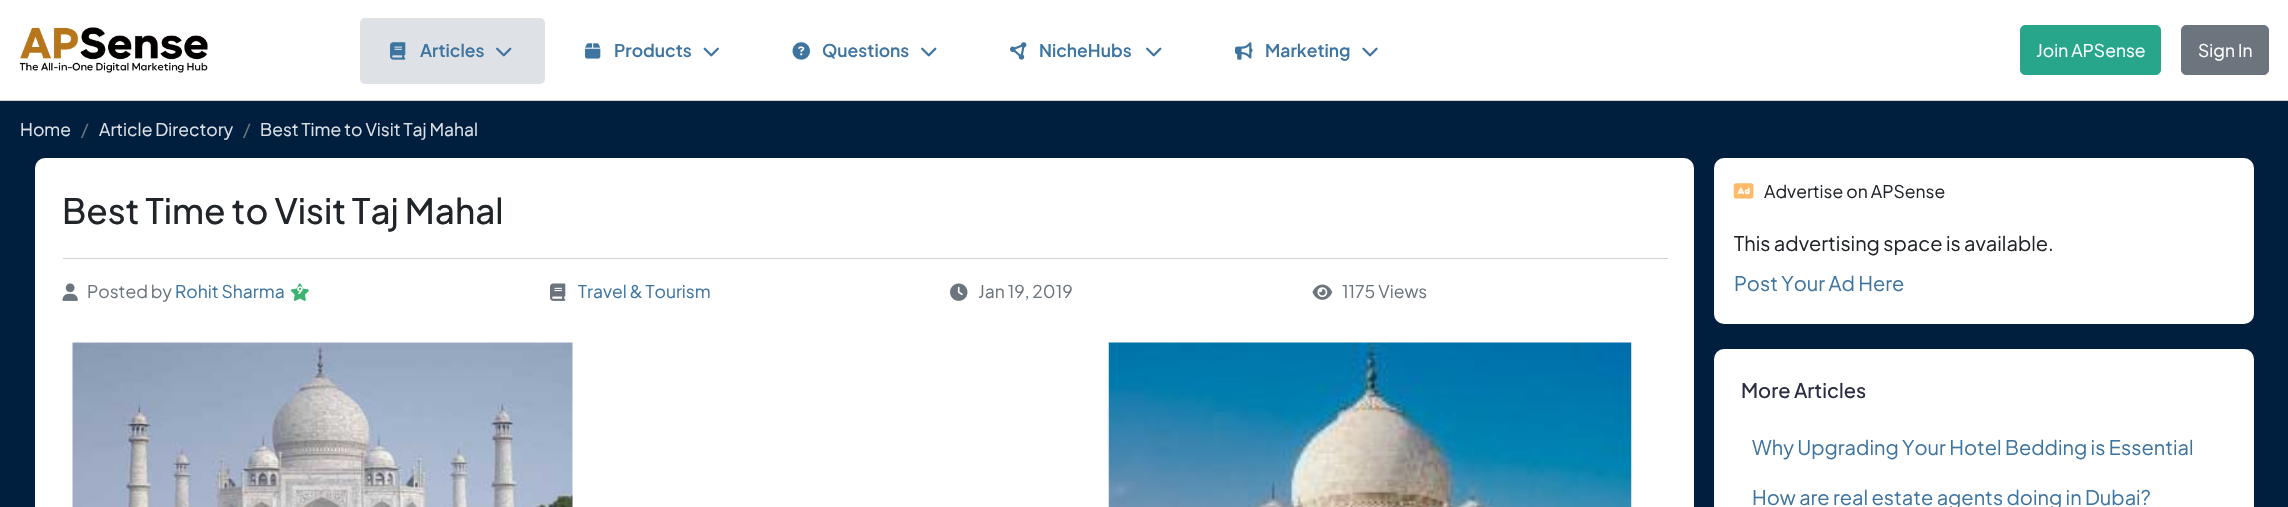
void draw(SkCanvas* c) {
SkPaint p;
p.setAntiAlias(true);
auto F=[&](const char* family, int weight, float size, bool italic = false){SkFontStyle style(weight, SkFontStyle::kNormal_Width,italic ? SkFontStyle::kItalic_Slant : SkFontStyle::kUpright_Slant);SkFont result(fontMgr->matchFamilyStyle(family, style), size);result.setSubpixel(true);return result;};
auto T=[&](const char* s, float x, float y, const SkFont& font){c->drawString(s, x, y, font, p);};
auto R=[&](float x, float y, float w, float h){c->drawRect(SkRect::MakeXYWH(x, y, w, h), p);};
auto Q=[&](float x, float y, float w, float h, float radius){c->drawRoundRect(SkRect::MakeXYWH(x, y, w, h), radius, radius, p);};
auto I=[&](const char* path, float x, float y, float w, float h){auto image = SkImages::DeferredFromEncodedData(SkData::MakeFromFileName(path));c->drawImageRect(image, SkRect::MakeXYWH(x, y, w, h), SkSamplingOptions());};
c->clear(0xff001f3f);
p.setColor(0xffffffff);
R(0,0,2288,100);
p.setColor(0xffd1d1d1);
R(0,100,2288,1);
I("1.png",20,27,188,46);
p.setColor(0xffdee2e6);
Q(360,18,185,66,5);
I("2.png",390,42,16,18);
auto f1 = F("Plus Jakarta Sans",600,17.5);
p.setColor(0xff3e74a0);
T("Articles",420,57,f1);
I("3.png",496,47,16,10);
I("4.png",585,43,16,16);
T("Products",614,57,f1);
I("5.png",703,47,16,10);
I("6.png",792,42,18,18);
T("Questions",822,57,f1);
I("7.png",921,47,16,10);
I("8.png",1010,42,17,18);
T("NicheHubs",1039,57,f1);
I("7.png",1146,47,16,10);
I("9.png",1235,42,18,18);
T("Marketing",1265,57,f1);
I("10.png",1362,47,16,10);
p.setColor(0xff27a68c);
c->drawRoundRect(SkRect::MakeXYWH(2020.5,25.5,140,49),4.5,4.5,p);
p.setStroke(true);
p.setStrokeWidth(1);
c->drawRoundRect(SkRect::MakeXYWH(2020.5,25.5,140,49),4.5,4.5,p);
auto f2 = F("Plus Jakarta Sans",400,17.5);
p.setStroke(false);
p.setColor(0xffffffff);
T("Join APSense",2036,57,f2);
p.setColor(0xff6c757d);
c->drawRoundRect(SkRect::MakeXYWH(2181.5,25.5,87,49),4.5,4.5,p);
p.setStroke(true);
c->drawRoundRect(SkRect::MakeXYWH(2181.5,25.5,87,49),4.5,4.5,p);
p.setStroke(false);
p.setColor(0xffffffff);
T("Sign In",2198,57,f2);
p.setColor(0xffdee2e6);
T("Home",20,136,f2);
p.setColor(0xff6c757d);
T("/",81,136,f2);
p.setColor(0xffdee2e6);
T("Article Directory",99,136,f2);
p.setColor(0xff6c757d);
T("/",243,136,f2);
p.setColor(0xffdee2e6);
T("Best Time to Visit Taj Mahal",260,136,f2);
p.setColor(0xffffffff);
Q(35,158,1659,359,10);
p.setColor(0xffd1d1d1);
R(63,258,1605,1);
auto f3 = F("Plus Jakarta Sans",500,35);
p.setColor(0xff212529);
T("Best Time to Visit Taj Mahal",62,224,f3);
I("11.png",62,283,16,18);
p.setColor(0xff6c757d);
T("Posted by",87,298,f2);
p.setColor(0xff3e74a0);
T("Rohit Sharma",175,298,f2);
I("12.png",290,283,19,18);
auto f4 = F("Plus Jakarta Sans",700,10);
p.setColor(0xffffffff);
T("9",297,294,f4);
I("13.png",550,283,16,18);
p.setColor(0xff3e74a0);
T("Travel & Tourism",578,298,f2);
I("14.png",950,283,18,18);
p.setColor(0xff6c757d);
T("Jan 19, 2019",978,298,f2);
I("15.png",1312,284,21,16);
T("1175 Views",1342,298,f2);
I("16.png",72,342,501,165);
I("17.png",1108,342,524,165);
p.setColor(0xffffffff);
Q(1714,158,540,166,10);
I("18.png",1733,183,21,16);
p.setColor(0xff212529);
T("Advertise on APSense",1764,198,f2);
auto f5 = F("Plus Jakarta Sans",400,20);
T("This advertising space is available.",1734,251,f5);
p.setColor(0xff3e74a0);
T("Post Your Ad Here",1734,291,f5);
p.setColor(0xffffffff);
Q(1714,349,540,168,10);
auto f6 = F("Plus Jakarta Sans",500,20);
p.setColor(0xff2b2d42);
T("More Articles",1741,398,f6);
p.setColor(0xff3e74a0);
T("Why Upgrading Your Hotel Bedding is Essential",1752,455,f5);
T("How are real estate agents doing in Dubai?",1752,505,f5);
}
